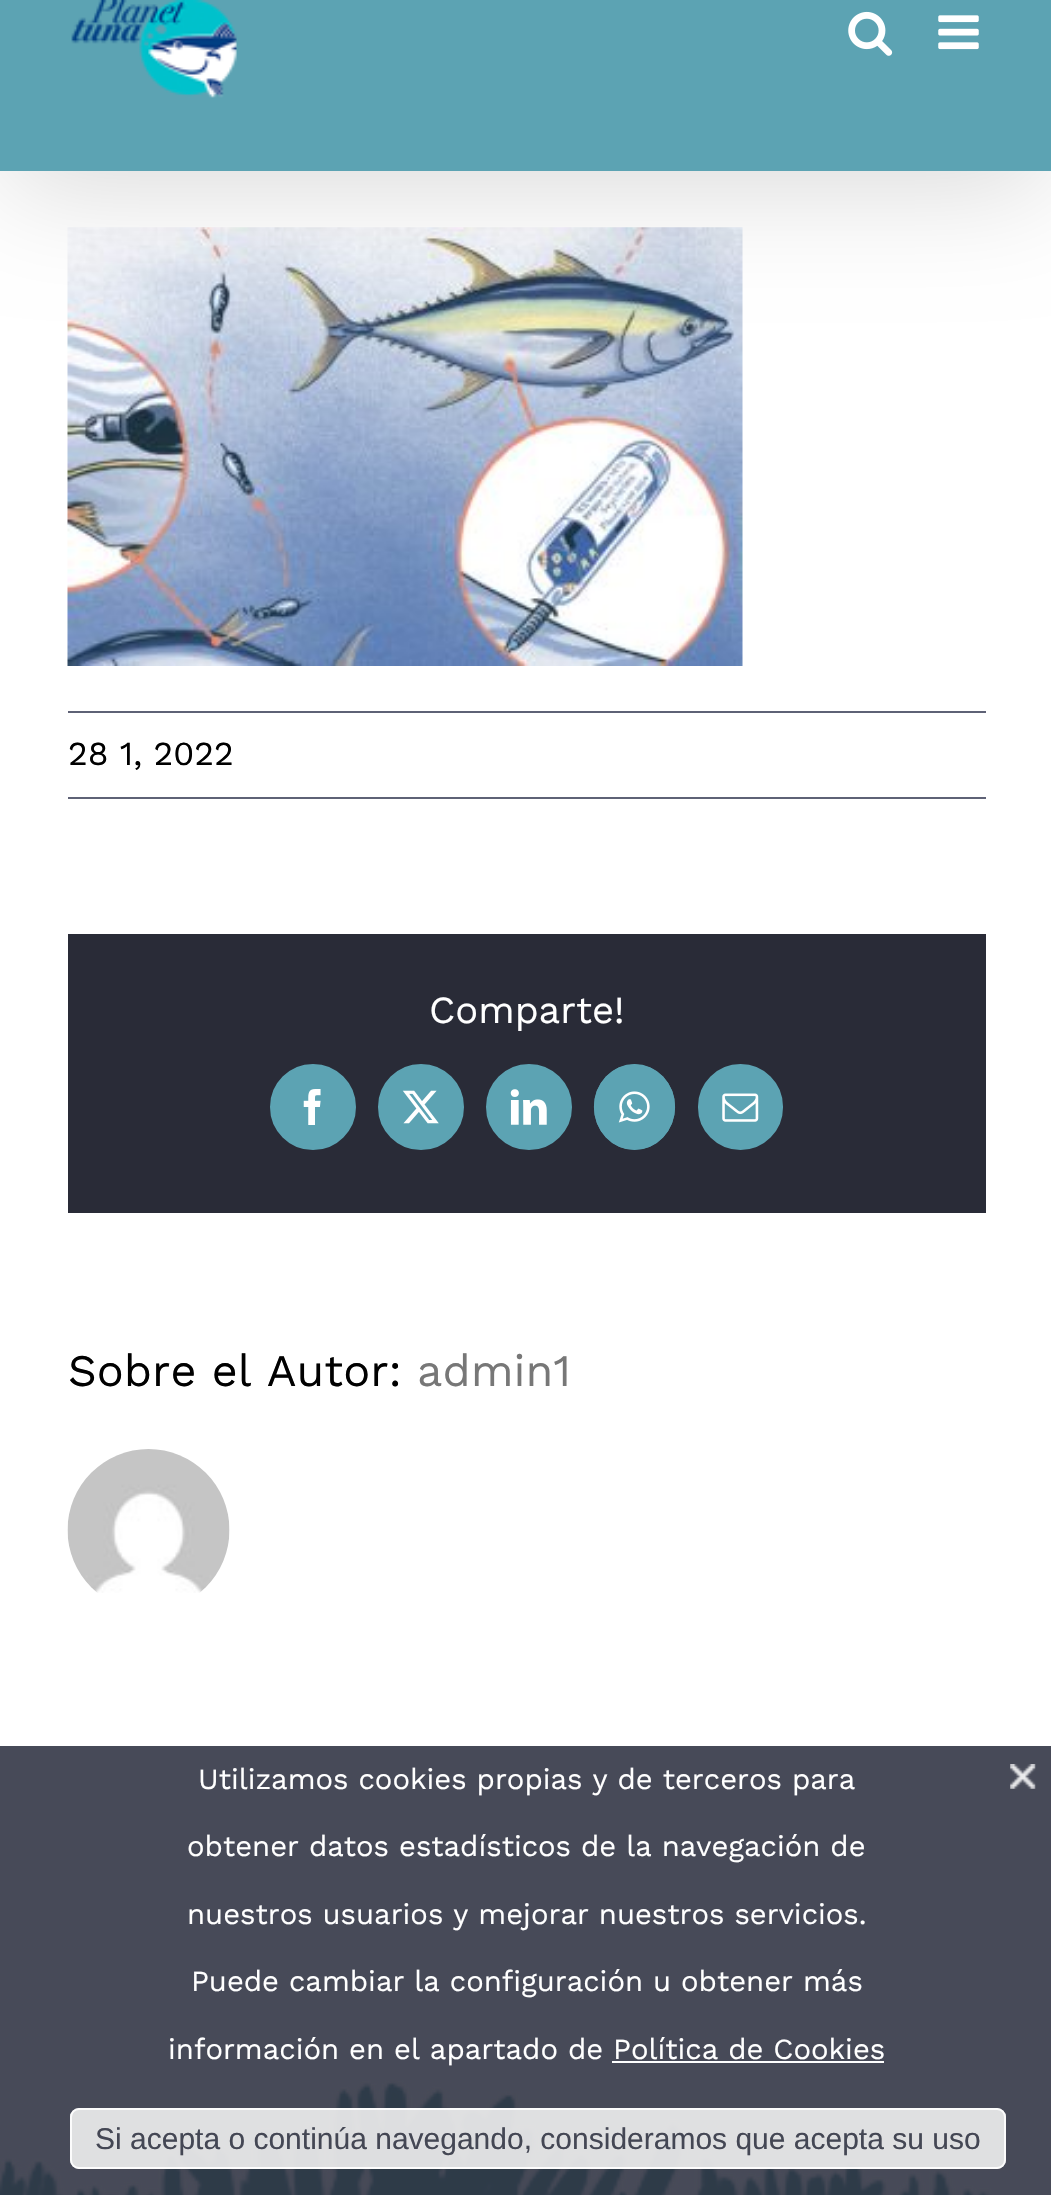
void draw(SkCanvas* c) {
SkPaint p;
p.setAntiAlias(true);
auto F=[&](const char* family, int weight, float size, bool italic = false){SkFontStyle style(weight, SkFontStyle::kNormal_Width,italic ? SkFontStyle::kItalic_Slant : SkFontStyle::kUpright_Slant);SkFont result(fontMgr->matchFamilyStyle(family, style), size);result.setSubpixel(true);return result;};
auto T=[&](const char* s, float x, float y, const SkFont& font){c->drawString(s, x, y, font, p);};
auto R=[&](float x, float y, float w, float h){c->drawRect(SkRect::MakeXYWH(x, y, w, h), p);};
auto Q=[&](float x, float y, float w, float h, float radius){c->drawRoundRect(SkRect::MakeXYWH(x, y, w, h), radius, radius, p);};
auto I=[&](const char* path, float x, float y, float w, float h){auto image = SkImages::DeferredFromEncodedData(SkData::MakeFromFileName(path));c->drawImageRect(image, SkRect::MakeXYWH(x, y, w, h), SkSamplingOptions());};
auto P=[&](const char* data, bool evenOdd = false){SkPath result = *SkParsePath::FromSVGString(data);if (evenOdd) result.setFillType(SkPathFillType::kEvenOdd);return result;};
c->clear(0xffffffff);
p.setColor(0xff474a58);
R(0,1746,1051,449);
I("4.png",67,227,676,439);
p.setColor(0x24000000);
p.setMaskFilter(SkMaskFilter::MakeBlur(kNormal_SkBlurStyle, 56));
c->drawRect(SkRect::MakeXYWH(5,-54,1044,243),p);
p.setMaskFilter(nullptr);
p.setColor(0xff5ca3b3);
R(0,0,1051,171);
I("1.png",71,0,166,98);
I("2.png",848,11,45,45);
I("3.png",938,15,41,35);
p.setColor(0xff5e6276);
R(68,711,918,2);
R(68,797,918,2);
auto f1 = F("Work Sans",400,33.75);
p.setColor(0xff000000);
T("28 1, 2022",68,765,f1);
p.setColor(0xff292b37);
R(68,934,918,279);
auto f2 = F("Work Sans",400,38.25);
p.setColor(0xffffffff);
T("Comparte!",429,1023,f2);
p.setColor(0xff5ca3b3);
c->drawCircle(313,1107,42,p);
p.setStroke(true);
p.setStrokeWidth(2);
c->drawCircle(313,1107,42,p);
I("5.png",303,1089,18,36);
p.setStroke(false);
c->drawCircle(421,1107,42,p);
p.setStroke(true);
c->drawCircle(421,1107,42,p);
I("6.png",402,1090,37,34);
p.setStroke(false);
c->drawCircle(529,1107,42,p);
p.setStroke(true);
c->drawCircle(529,1107,42,p);
I("7.png",510,1089,37,36);
p.setStroke(false);
c->drawOval(SkRect::MakeXYWH(594,1064,81,86),p);
p.setStroke(true);
p.setStrokeWidth(2.2);
c->drawPath(P("M634.5 1065.5c21.5 0 39.5 18.5 39.5 41.5c0 23-18 41.5-39.5 41.5c-21.5 0-39.5-18.5-39.5-41.5c0-23 18-41.5 39.5-41.5z"),p);
I("8.png",618,1091,32,32);
p.setStroke(false);
c->drawRoundRect(SkRect::MakeXYWH(699,1065,83,84),41.5,41.5,p);
p.setStroke(true);
p.setStrokeWidth(2);
c->drawRoundRect(SkRect::MakeXYWH(699,1065,83,84),41.5,41.5,p);
I("9.png",722,1093,37,29);
auto f3 = F("Work Sans",400,45);
p.setStroke(false);
p.setColor(0xff000000);
T("Sobre el Autor:",68,1386,f3);
p.setColor(0xff777777);
T("admin1",417,1386,f3);
I("10.png",67,1449,163,144);
I("11.png",0,2080,993,115);
auto f4 = F("Work Sans",400,29.25);
p.setColor(0xffffffff);
T("Utilizamos cookies propias y de terceros para",198,1789,f4);
T("obtener datos estadísticos de la navegación de",187,1856,f4);
T("nuestros usuarios y mejorar nuestros servicios.",187,1924,f4);
T("Puede cambiar la configuración u obtener más",191,1991,f4);
T("información en el apartado de Política de Cookies",168,2059,f4);
R(612,2061,272,2);
I("12.png",1010,1764,26,25);
p.setColor(0xe6efefef);
Q(70,2108,936,61,9);
p.setStroke(true);
p.setColor(0xe6ffffff);
c->drawRoundRect(SkRect::MakeXYWH(71,2109,934,59),8,8,p);
auto f5 = F("Liberation Sans",400,30);
p.setStroke(false);
p.setColor(0xff444754);
T("Si acepta o continúa navegando, consideramos que acepta su uso",95,2149,f5);
}
